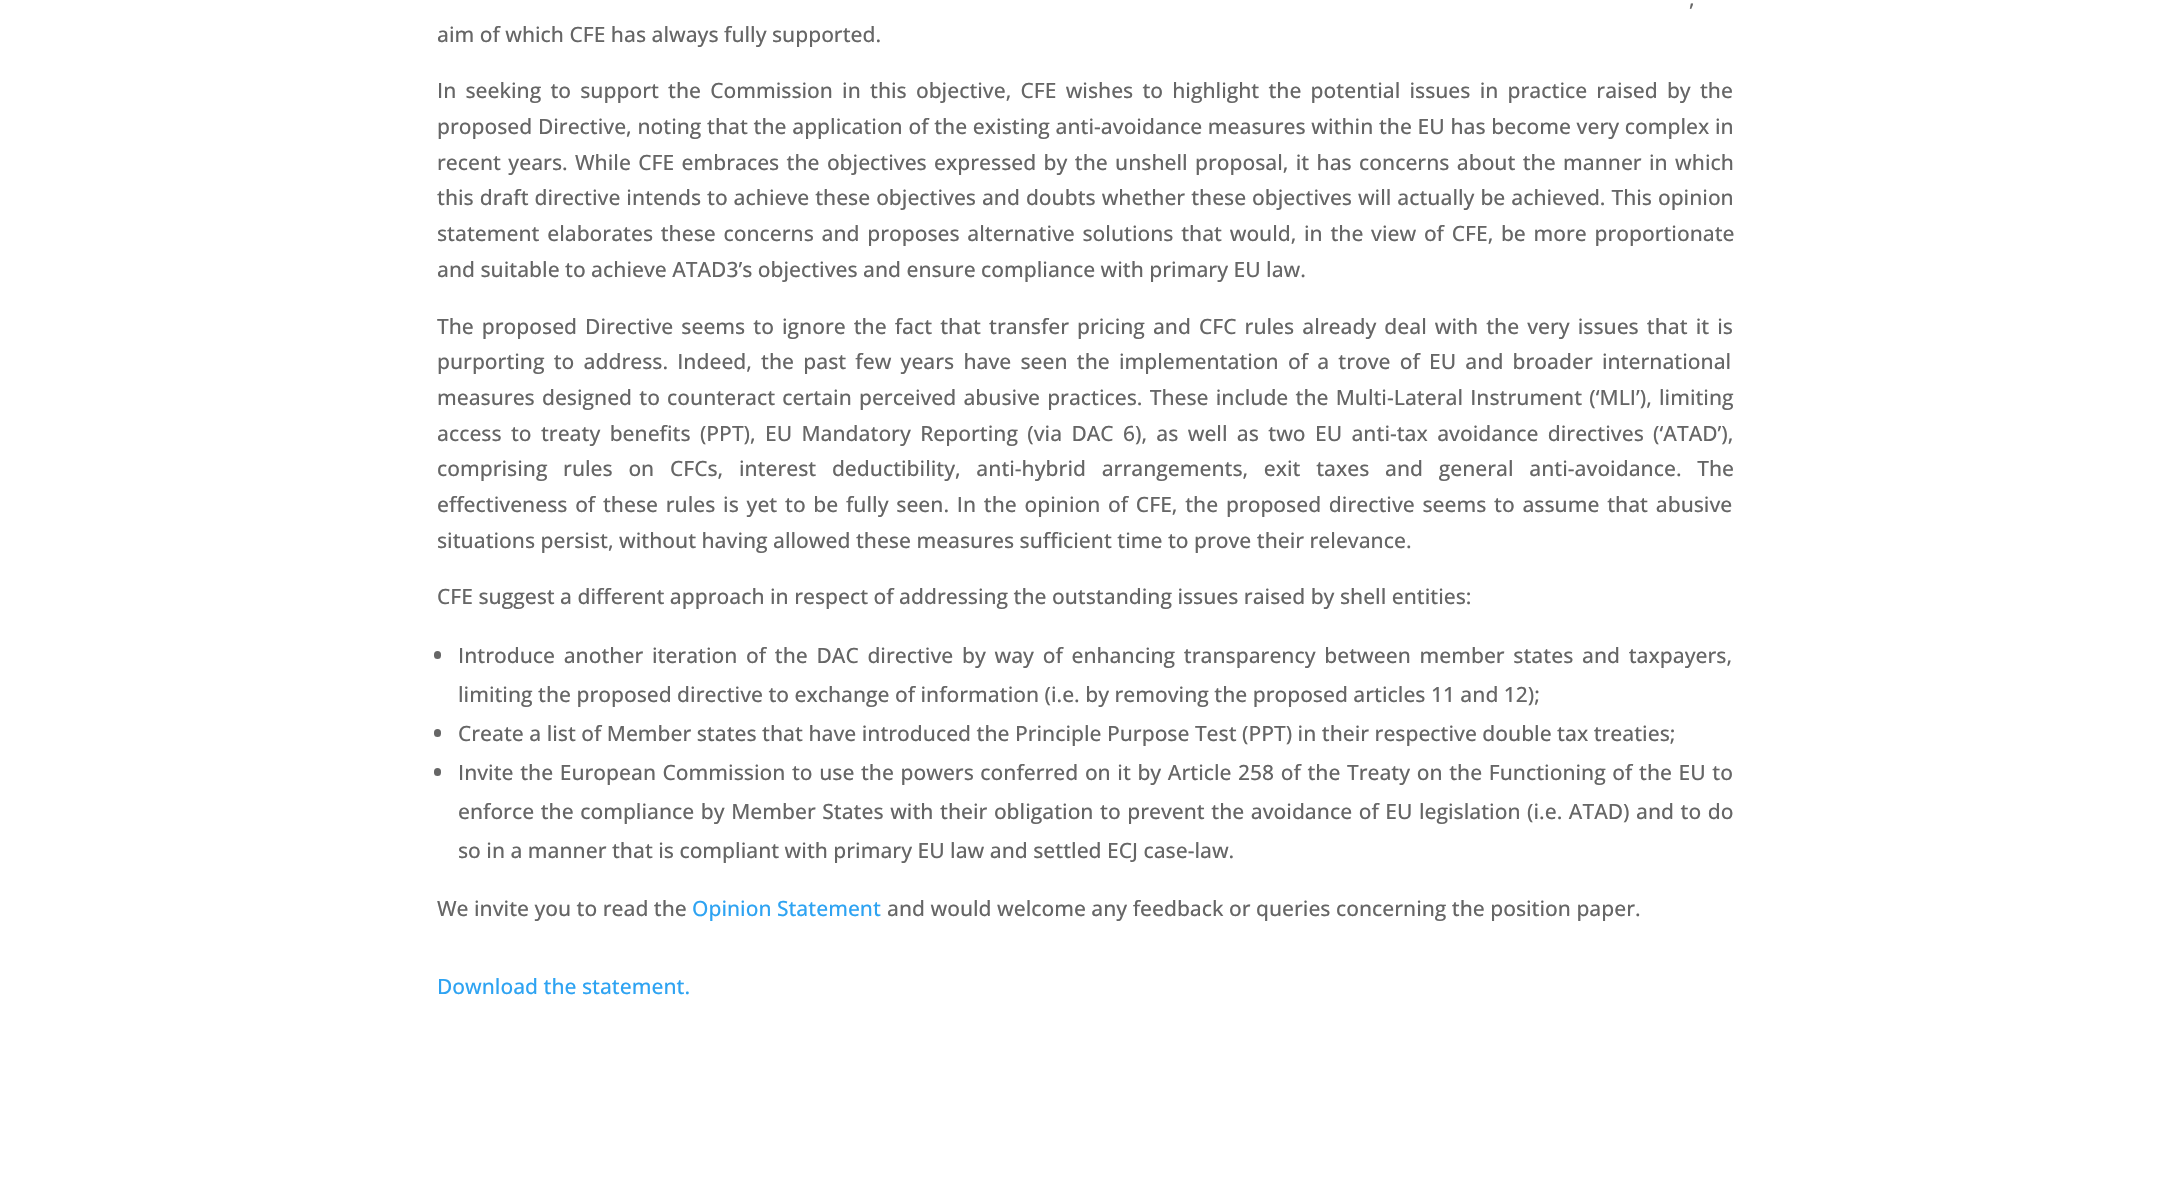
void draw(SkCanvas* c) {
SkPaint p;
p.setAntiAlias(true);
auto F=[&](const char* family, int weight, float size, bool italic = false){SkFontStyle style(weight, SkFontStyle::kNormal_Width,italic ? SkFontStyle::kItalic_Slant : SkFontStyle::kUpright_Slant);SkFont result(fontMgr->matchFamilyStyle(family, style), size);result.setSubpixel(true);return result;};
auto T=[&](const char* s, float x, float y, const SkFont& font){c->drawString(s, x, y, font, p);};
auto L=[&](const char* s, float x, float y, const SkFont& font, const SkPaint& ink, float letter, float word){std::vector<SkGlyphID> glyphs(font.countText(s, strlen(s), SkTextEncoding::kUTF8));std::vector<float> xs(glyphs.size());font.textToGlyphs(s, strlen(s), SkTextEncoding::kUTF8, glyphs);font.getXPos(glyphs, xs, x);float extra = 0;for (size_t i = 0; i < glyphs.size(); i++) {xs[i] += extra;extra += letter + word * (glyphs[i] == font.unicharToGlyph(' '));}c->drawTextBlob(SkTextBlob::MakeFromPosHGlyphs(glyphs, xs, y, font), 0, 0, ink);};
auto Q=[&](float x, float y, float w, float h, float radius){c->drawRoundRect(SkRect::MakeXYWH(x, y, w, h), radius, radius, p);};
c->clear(0xffffffff);
auto f1 = F("Open Sans",500,21);
p.setColor(0xff666666);
T(",",1689,6,f1);
T("aim of which CFE has always fully supported.",437,42,f1);
L("In seeking to support the Commission in this objective, CFE wishes to highlight the potential issues in practice raised by the",437,98,f1,p,0,3.75);
L("proposed Directive, noting that the application of the existing anti-avoidance measures within the EU has become very complex in",437,134,f1,p,0,.25);
L("recent years. While CFE embraces the objectives expressed by the unshell proposal, it has concerns about the manner in which",437,170,f1,p,0,1.9);
L("this draft directive intends to achieve these objectives and doubts whether these objectives will actually be achieved. This opinion",437,205,f1,p,0,.5);
L("statement elaborates these concerns and proposes alternative solutions that would, in the view of CFE, be more proportionate",437,241,f1,p,0,2.25);
T("and suitable to achieve ATAD3’s objectives and ensure compliance with primary EU law.",437,277,f1);
L("The proposed Directive seems to ignore the fact that transfer pricing and CFC rules already deal with the very issues that it is",437,334,f1,p,0,2.6);
L("purporting to address. Indeed, the past few years have seen the implementation of a trove of EU and broader international",437,369,f1,p,0,3.75);
L("measures designed to counteract certain perceived abusive practices. These include the Multi-Lateral Instrument (‘MLI’), limiting",437,405,f1,p,0,1.75);
L("access to treaty benefits (PPT), EU Mandatory Reporting (via DAC 6), as well as two EU anti-tax avoidance directives (‘ATAD’),",437,441,f1,p,0,3.9);
L("comprising rules on CFCs, interest deductibility, anti-hybrid arrangements, exit taxes and general anti-avoidance. The",437,476,f1,p,0,10.25);
L("effectiveness of these rules is yet to be fully seen. In the opinion of CFE, the proposed directive seems to assume that abusive",437,512,f1,p,0,2.3);
T("situations persist, without having allowed these measures sufficient time to prove their relevance.",437,548,f1);
T("CFE suggest a different approach in respect of addressing the outstanding issues raised by shell entities:",437,604,f1);
Q(434,651,7,8,3.5);
L("Introduce another iteration of the DAC directive by way of enhancing transparency between member states and taxpayers,",458,663,f1,p,0,3.25);
T("limiting the proposed directive to exchange of information (i.e. by removing the proposed articles 11 and 12);",458,702,f1);
Q(434,729,7,8,3.5);
T("Create a list of Member states that have introduced the Principle Purpose Test (PPT) in their respective double tax treaties;",458,741,f1);
Q(434,768,7,8,3.5);
L("Invite the European Commission to use the powers conferred on it by Article 258 of the Treaty on the Functioning of the EU to",458,780,f1,p,0,1.15);
L("enforce the compliance by Member States with their obligation to prevent the avoidance of EU legislation (i.e. ATAD) and to do",458,819,f1,p,0,1.1);
T("so in a manner that is compliant with primary EU law and settled ECJ case-law.",458,858,f1);
T("We invite you to read the",437,916,f1);
p.setColor(0xff2ea3f2);
T("Opinion Statement",692,916,f1);
p.setColor(0xff666666);
T("and would welcome any feedback or queries concerning the position paper.",887,916,f1);
p.setColor(0xff2ea3f2);
T("Download the statement.",437,994,f1);
}
